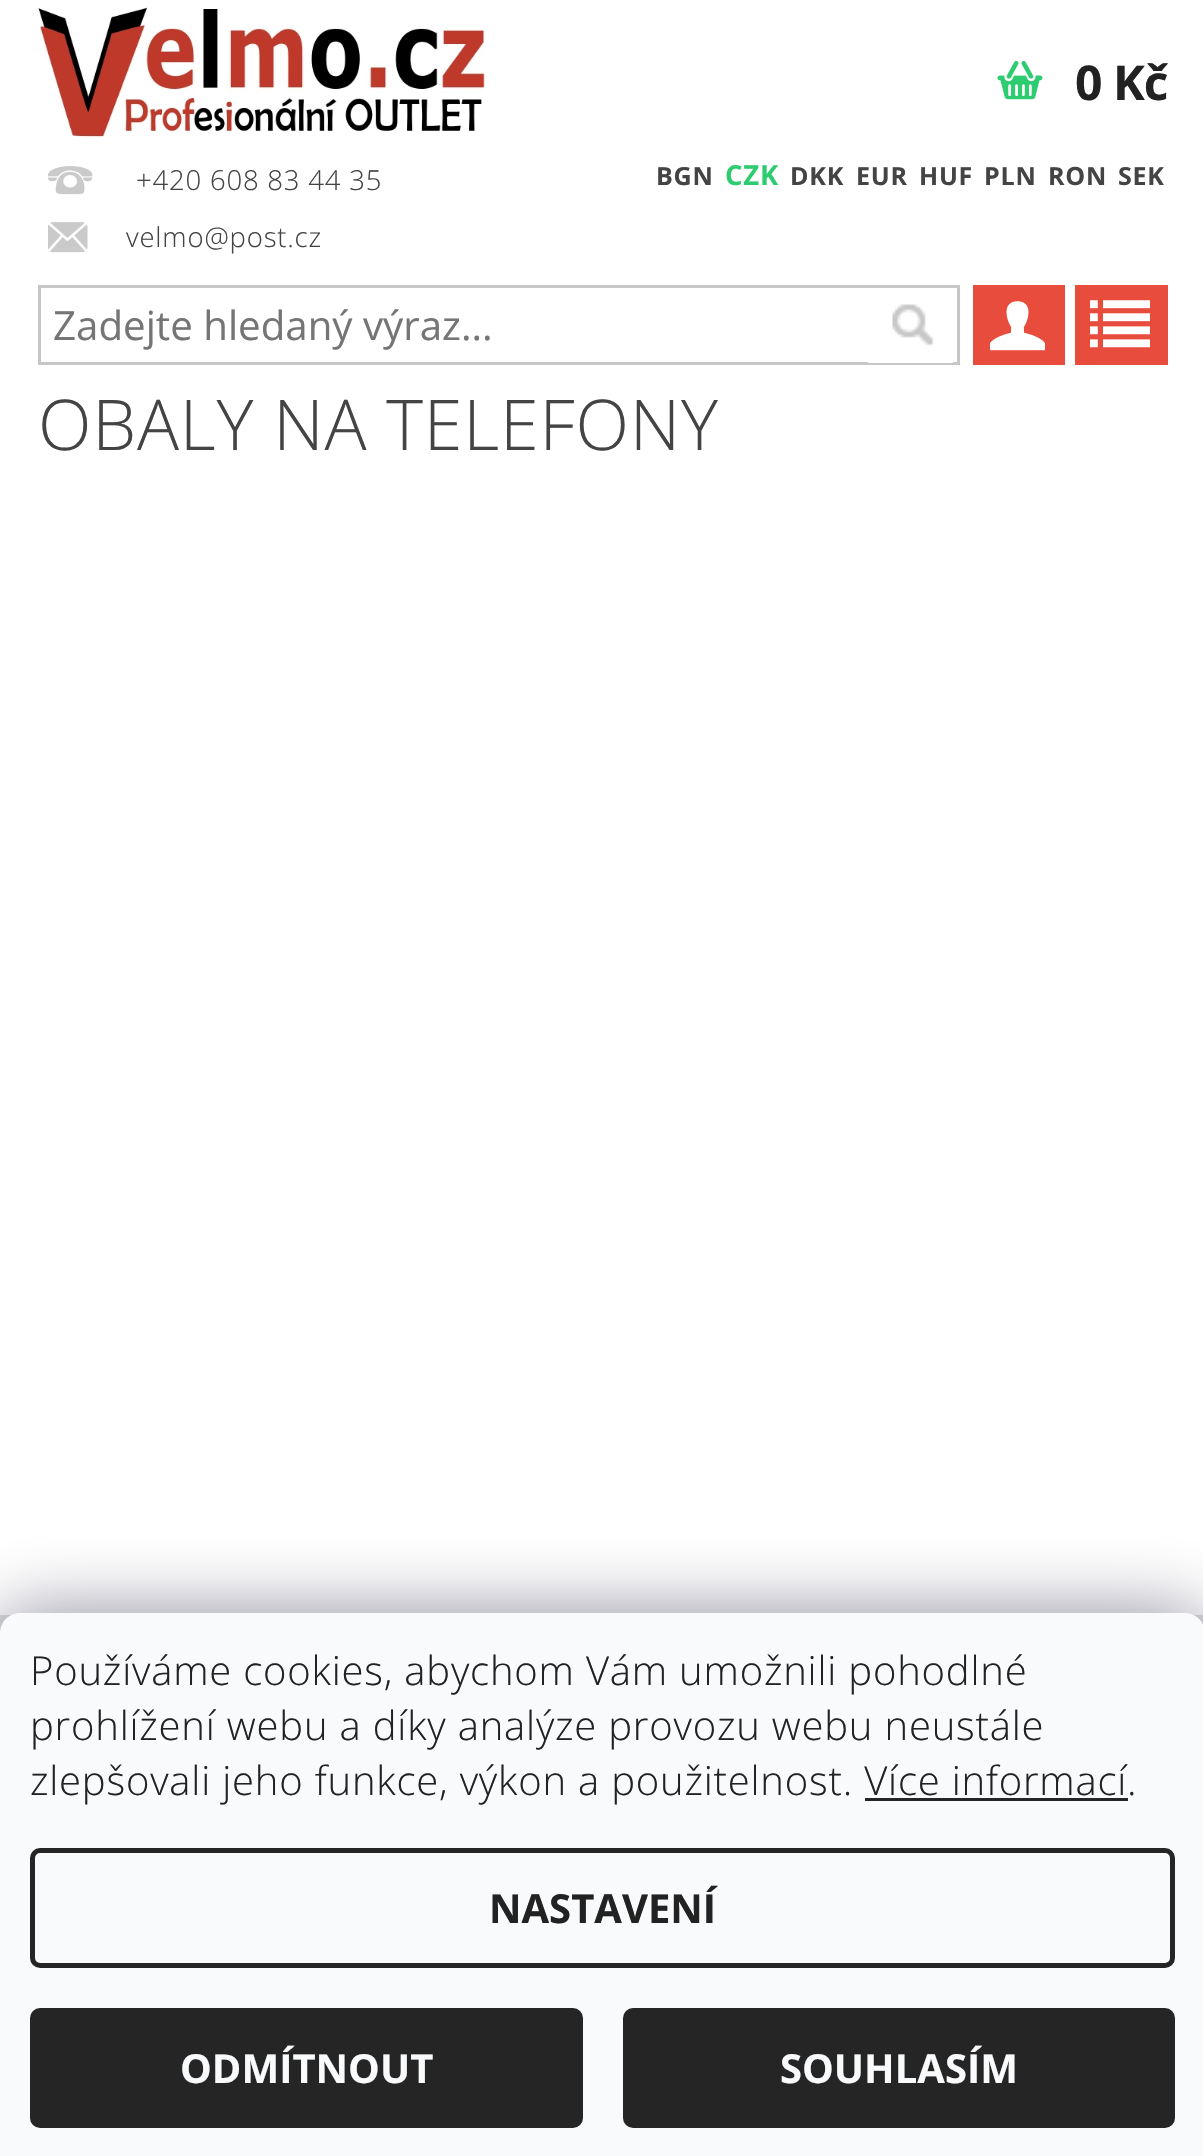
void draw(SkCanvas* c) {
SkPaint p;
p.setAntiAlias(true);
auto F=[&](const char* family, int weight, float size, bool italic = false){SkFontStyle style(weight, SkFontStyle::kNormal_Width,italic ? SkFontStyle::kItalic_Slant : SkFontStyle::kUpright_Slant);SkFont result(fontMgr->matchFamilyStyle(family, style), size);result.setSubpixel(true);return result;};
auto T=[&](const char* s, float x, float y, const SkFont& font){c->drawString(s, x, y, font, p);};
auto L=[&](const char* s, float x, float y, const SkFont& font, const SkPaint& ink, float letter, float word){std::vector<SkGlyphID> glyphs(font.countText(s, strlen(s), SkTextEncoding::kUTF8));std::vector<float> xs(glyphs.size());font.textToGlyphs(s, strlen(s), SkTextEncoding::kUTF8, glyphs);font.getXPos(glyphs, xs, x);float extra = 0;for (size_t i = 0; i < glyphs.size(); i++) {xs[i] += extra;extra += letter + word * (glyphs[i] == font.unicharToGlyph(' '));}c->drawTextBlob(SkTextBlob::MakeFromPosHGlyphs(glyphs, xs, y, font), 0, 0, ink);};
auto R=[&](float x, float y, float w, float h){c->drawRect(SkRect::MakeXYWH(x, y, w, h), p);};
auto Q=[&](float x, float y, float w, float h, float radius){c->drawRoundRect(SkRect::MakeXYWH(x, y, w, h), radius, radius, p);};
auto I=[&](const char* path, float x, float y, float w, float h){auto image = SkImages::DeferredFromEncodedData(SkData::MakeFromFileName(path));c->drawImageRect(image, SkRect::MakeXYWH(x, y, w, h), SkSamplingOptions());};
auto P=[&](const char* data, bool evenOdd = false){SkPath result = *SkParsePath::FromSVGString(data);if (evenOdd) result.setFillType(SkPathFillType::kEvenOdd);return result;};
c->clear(0xffffffff);
I("1.png",38,7,447,130);
I("2.png",997,60,46,40);
auto f1 = F("Open Sans",700,48);
p.setColor(0xff222222);
L("0 Kč",1075,100,f1,p,-1,0);
auto f2 = F("Open Sans",700,25);
p.setColor(0xff444444);
L("BGN",656,185,f2,p,.8,0);
auto f3 = F("Open Sans",700,27.5);
p.setColor(0xff2ecc71);
L("CZK",725,185,f3,p,.8,0);
p.setColor(0xff444444);
L("DKK",790,185,f2,p,.8,0);
L("EUR",856,185,f2,p,.8,0);
L("HUF",919,185,f2,p,.8,0);
L("PLN",984,185,f2,p,.8,0);
L("RON",1048,185,f2,p,.8,0);
L("SEK",1118,185,f2,p,.8,0);
p.setColor(0xffe74c3c);
R(973,285,92,80);
I("3.png",990,301,55,50);
I("4.png",48,166,45,29);
auto f4 = F("Open Sans",300,27.5);
p.setColor(0xff444444);
L("+420 608 83 44 35",136,190,f4,p,.8,0);
I("5.png",48,222,40,31);
L("velmo@post.cz",126,247,f4,p,.8,0);
p.setStroke(true);
p.setStrokeWidth(3);
p.setColor(0xffc6c6c6);
c->drawRect(SkRect::MakeXYWH(39.5,286.5,919,77),p);
auto f5 = F("Open Sans",400,40.25);
p.setStroke(false);
p.setColor(0xff757575);
T("Zadejte hledaný výraz...",53,340,f5);
p.setColor(0xffffffff);
R(868,362,85,1);
I("6.png",892,304,42,42);
p.setColor(0xffe74c3c);
R(1075,285,93,80);
I("7.png",1090,300,60,48);
auto f6 = F("Open Sans",300,70);
p.setColor(0xff444444);
L("OBALY NA TELEFONY",38,450,f6,p,.8,0);
p.setColor(0xffe0e0e0);
R(0,1615,1203,18);
p.setColor(0x801b1939);
p.setMaskFilter(SkMaskFilter::MakeBlur(kNormal_SkBlurStyle, 37.5));
c->drawRoundRect(SkRect::MakeXYWH(0,1613,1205,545),20,20,p);
p.setMaskFilter(nullptr);
p.setColor(0xfff8fafb);
c->drawPath(P("M20 1613h1165c11 0 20 9 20 20v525h-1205v-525c0-11 9-20 20-20z"),p);
auto f7 = F("Open Sans",300,40);
p.setColor(0xff222222);
L("Používáme cookies, abychom Vám umožnili pohodlné",30,1685,f7,p,.8,0);
L("prohlížení webu a díky analýze provozu webu neustále",30,1740,f7,p,.8,0);
L("zlepšovali jeho funkce, výkon a použitelnost. Více informací.",30,1795,f7,p,.8,0);
p.setColor(0xff252525);
R(865,1798,263,3);
p.setStroke(true);
p.setStrokeWidth(5);
c->drawRoundRect(SkRect::MakeXYWH(32.5,1850.5,1140,115),7.5,7.5,p);
auto f8 = F("Open Sans",700,40);
p.setStroke(false);
p.setColor(0xff222222);
T("NASTAVENÍ",489,1923,f8);
p.setColor(0xff252525);
Q(30,2008,553,120,10);
p.setColor(0xfff8fafb);
T("ODMÍTNOUT",180,2083,f8);
p.setColor(0xff252525);
Q(623,2008,552,120,10);
p.setColor(0xfff8fafb);
T("SOUHLASÍM",780,2083,f8);
}
